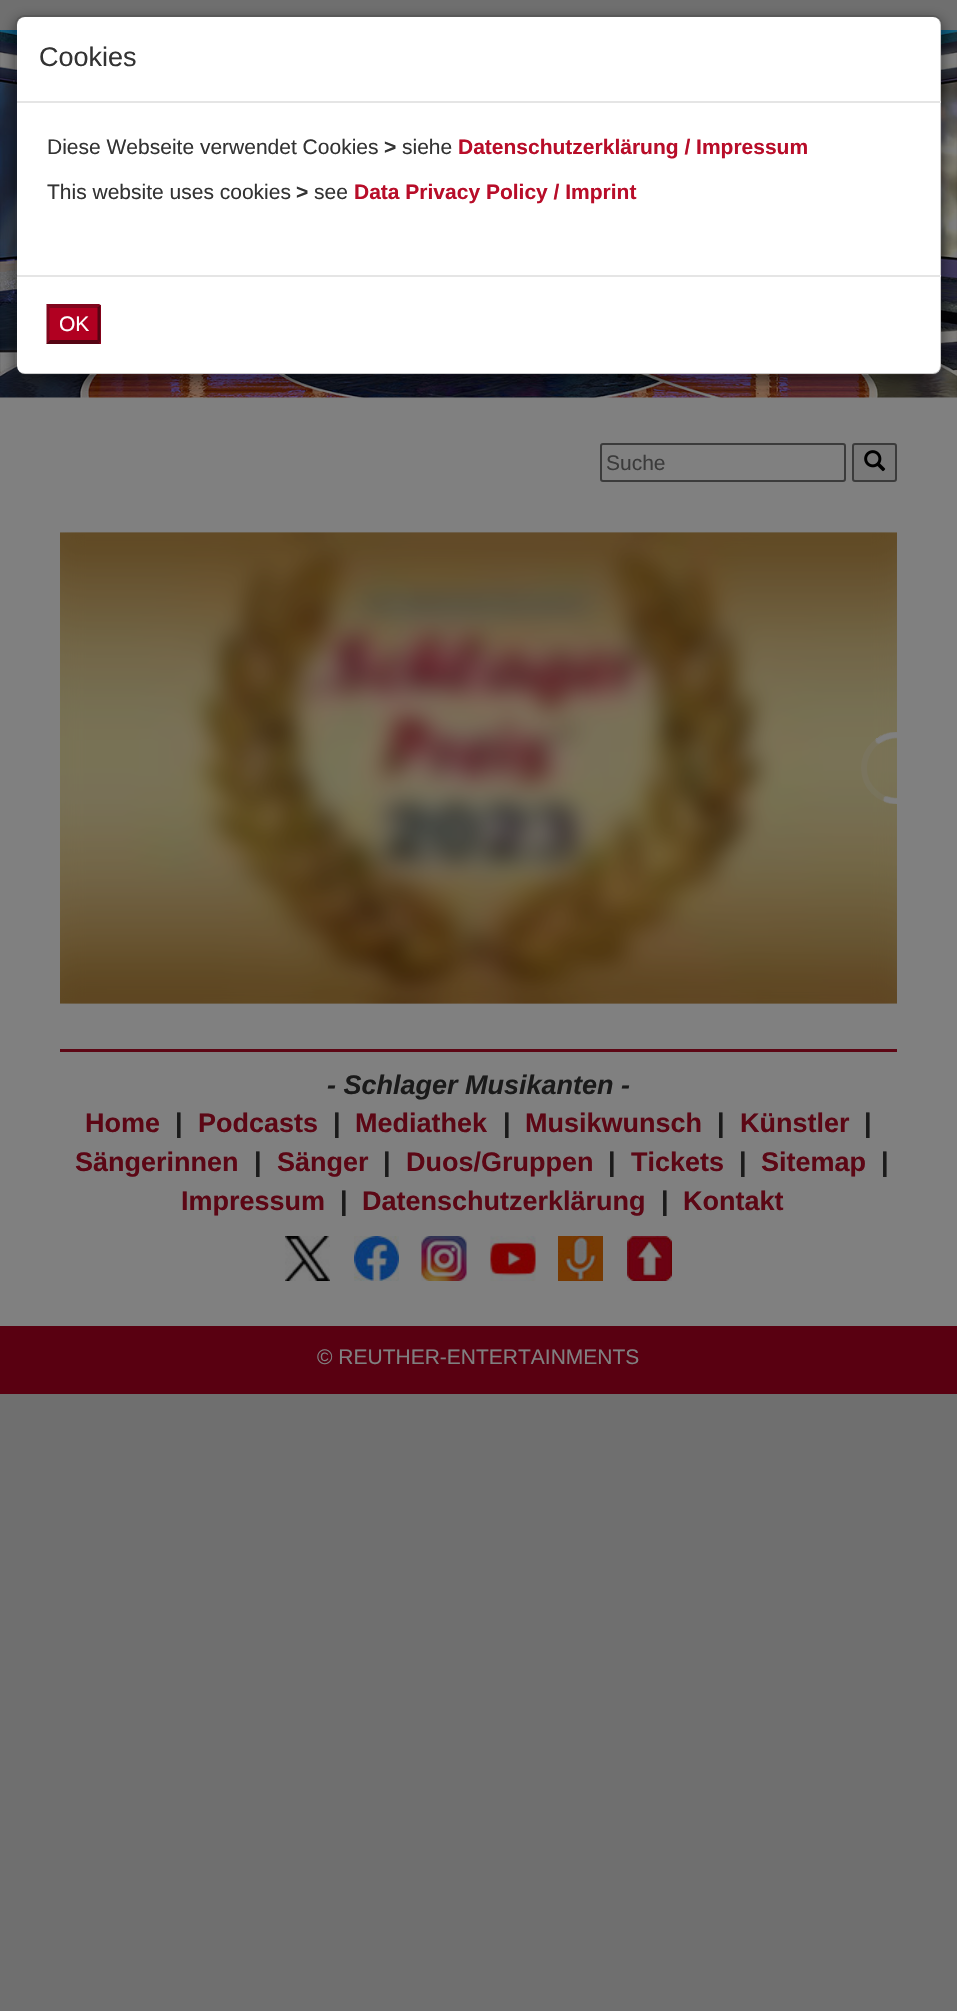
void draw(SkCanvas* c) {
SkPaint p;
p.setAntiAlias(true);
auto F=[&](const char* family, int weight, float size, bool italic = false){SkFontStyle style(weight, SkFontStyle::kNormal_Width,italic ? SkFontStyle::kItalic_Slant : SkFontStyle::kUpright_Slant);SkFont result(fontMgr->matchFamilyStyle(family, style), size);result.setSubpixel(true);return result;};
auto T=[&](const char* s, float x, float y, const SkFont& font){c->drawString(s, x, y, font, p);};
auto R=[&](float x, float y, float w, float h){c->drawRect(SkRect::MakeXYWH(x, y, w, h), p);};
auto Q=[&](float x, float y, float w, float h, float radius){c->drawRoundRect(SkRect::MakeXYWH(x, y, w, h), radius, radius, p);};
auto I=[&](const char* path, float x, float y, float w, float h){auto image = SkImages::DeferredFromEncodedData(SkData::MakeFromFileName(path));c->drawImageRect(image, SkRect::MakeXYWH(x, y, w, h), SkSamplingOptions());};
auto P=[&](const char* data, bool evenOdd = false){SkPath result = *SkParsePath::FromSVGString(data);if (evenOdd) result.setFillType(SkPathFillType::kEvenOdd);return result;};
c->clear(0xff6f6f6f);
p.setColor(0xff808080);
R(0,397,957,929);
I("1.png",0,30,957,368);
c->save();
c->clipPath(P("M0 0h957v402h-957zm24 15h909c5 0 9 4 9 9v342c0 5-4 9-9 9h-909c-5 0-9-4-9-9v-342c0-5 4-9 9-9z",true),true);
p.setColor(0x80000000);
p.setMaskFilter(SkMaskFilter::MakeBlur(kNormal_SkBlurStyle, 7));
c->drawRoundRect(SkRect::MakeXYWH(15,20,927,360),9,9,p);
p.setMaskFilter(nullptr);
c->restore();
p.setColor(0xffffffff);
Q(17,17,924,357,8);
p.setStroke(true);
p.setStrokeWidth(2);
p.setColor(0x33000000);
c->drawRoundRect(SkRect::MakeXYWH(16,16,925,358),8,8,p);
p.setStroke(false);
p.setColor(0xffe5e5e5);
R(17,101,924,2);
auto f1 = F("Liberation Sans",400,27);
p.setColor(0xff333333);
T("Cookies",39,66,f1);
auto f2 = F("Liberation Sans",400,21);
T("Diese Webseite verwendet Cookies",47,154,f2);
auto f3 = F("Liberation Sans",700,21);
T(">",384,154,f3);
T("siehe",402,154,f2);
p.setColor(0xffb80d29);
T("Datenschutzerklärung / Impressum",458,154,f3);
p.setColor(0xff333333);
T("This website uses cookies",47,199,f2);
T(">",296,199,f3);
T("see",314,199,f2);
p.setColor(0xffb80d29);
T("Data Privacy Policy / Imprint",354,199,f3);
p.setColor(0xffe5e5e5);
R(17,275,924,2);
p.setColor(0xffb10021);
R(47,305,54,39);
p.setColor(0xff81061d);
c->drawPath(P("M46 304h54l-2 4h-48z"),p);
p.setColor(0xff560413);
c->drawPath(P("M100.5 304.5v39l-3-3v-33z"),p);
c->drawPath(P("M100 344h-54l4-4h48z"),p);
p.setColor(0xff81061d);
c->drawPath(P("M46.5 343.5v-39l3 3v33z"),p);
p.setColor(0xffffffff);
T("OK",59,331,f2);
p.setStroke(true);
p.setColor(0xff3b3b3b);
c->drawRoundRect(SkRect::MakeXYWH(601,444,244,37),2,2,p);
p.setStroke(false);
T("Suche",606,470,f2);
p.setColor(0xff787878);
c->drawRoundRect(SkRect::MakeXYWH(853,444,43,37),2,2,p);
p.setStroke(true);
p.setColor(0xff3b3b3b);
c->drawRoundRect(SkRect::MakeXYWH(853,444,43,37),2,2,p);
I("2.png",864,450,22,22);
I("3.png",60,532,837,472);
p.setStroke(false);
p.setColor(0xff5d0715);
R(60,1049,837,3);
auto f4 = F("Liberation Sans",700,27,true);
p.setColor(0xff1a1a1a);
T("- Schlager Musikanten -",327,1094,f4);
auto f5 = F("Liberation Sans",700,27);
p.setColor(0xff5c0715);
T("Home",85,1132,f5);
p.setColor(0xff1a1a1a);
T("|",175,1132,f5);
p.setColor(0xff5c0715);
T("Podcasts",198,1132,f5);
p.setColor(0xff1a1a1a);
T("|",333,1132,f5);
p.setColor(0xff5c0715);
T("Mediathek",355,1132,f5);
p.setColor(0xff1a1a1a);
T("|",503,1132,f5);
p.setColor(0xff5c0715);
T("Musikwunsch",525,1132,f5);
p.setColor(0xff1a1a1a);
T("|",717,1132,f5);
p.setColor(0xff5c0715);
T("Künstler",740,1132,f5);
p.setColor(0xff1a1a1a);
T("|",864,1132,f5);
p.setColor(0xff5c0715);
T("Sängerinnen",75,1171,f5);
p.setColor(0xff1a1a1a);
T("|",254,1171,f5);
p.setColor(0xff5c0715);
T("Sänger",277,1171,f5);
p.setColor(0xff1a1a1a);
T("|",383,1171,f5);
p.setColor(0xff5c0715);
T("Duos/Gruppen",406,1171,f5);
p.setColor(0xff1a1a1a);
T("|",608,1171,f5);
p.setColor(0xff5c0715);
T("Tickets",631,1171,f5);
p.setColor(0xff1a1a1a);
T("|",739,1171,f5);
p.setColor(0xff5c0715);
T("Sitemap",761,1171,f5);
p.setColor(0xff1a1a1a);
T("|",881,1171,f5);
p.setColor(0xff5c0715);
T("Impressum",181,1210,f5);
p.setColor(0xff1a1a1a);
T("|",340,1210,f5);
p.setColor(0xff5c0715);
T("Datenschutzerklärung",362,1210,f5);
p.setColor(0xff1a1a1a);
T("|",661,1210,f5);
p.setColor(0xff5c0715);
T("Kontakt",683,1210,f5);
I("4.png",285,1236,45,45);
I("5.png",354,1236,45,45);
I("6.png",421,1236,46,45);
I("7.png",490,1236,46,45);
I("8.png",558,1236,45,45);
I("9.png",627,1236,45,45);
p.setColor(0xff590011);
R(0,1326,957,68);
p.setColor(0xff808080);
T("© REUTHER-ENTERTAINMENTS",317,1364,f2);
}
